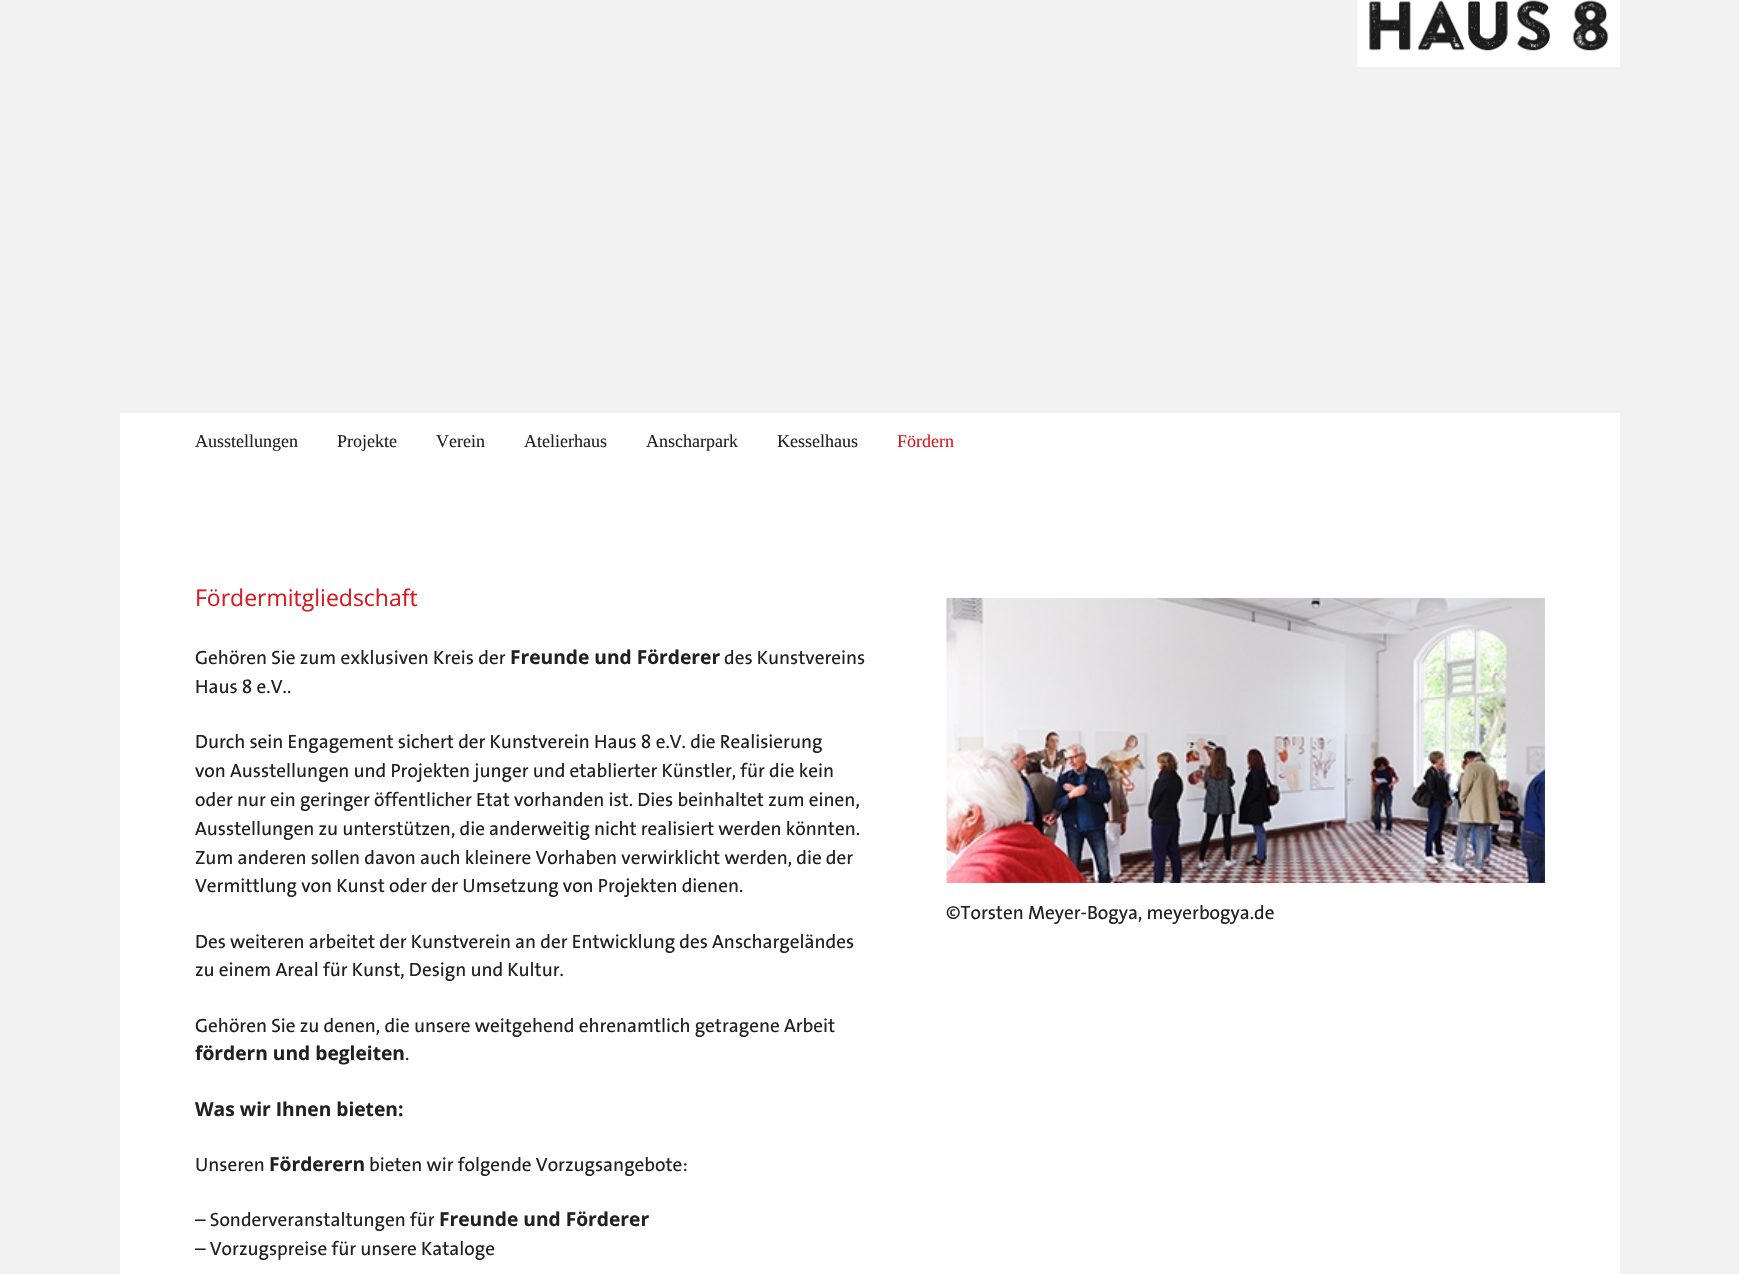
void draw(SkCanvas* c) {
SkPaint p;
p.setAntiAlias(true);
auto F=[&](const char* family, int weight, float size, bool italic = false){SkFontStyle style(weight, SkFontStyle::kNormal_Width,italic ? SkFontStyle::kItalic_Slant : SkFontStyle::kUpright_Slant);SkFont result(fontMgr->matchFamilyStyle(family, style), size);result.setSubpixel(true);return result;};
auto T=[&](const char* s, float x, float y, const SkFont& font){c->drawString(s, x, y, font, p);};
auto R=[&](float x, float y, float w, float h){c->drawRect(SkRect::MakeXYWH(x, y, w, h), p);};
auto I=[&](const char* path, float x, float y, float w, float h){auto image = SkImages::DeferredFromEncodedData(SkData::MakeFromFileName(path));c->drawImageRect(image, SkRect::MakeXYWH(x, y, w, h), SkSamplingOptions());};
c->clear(0xfff1f1f1);
I("1.png",1357,0,263,67);
p.setColor(0xffffffff);
R(120,413,1500,861);
auto f1 = F("Liberation Serif",400,18);
p.setColor(0xff212121);
T("Ausstellungen",195,447,f1);
T("Projekte",337,447,f1);
T("Verein",436,447,f1);
T("Atelierhaus",524,447,f1);
T("Anscharpark",646,447,f1);
T("Kesselhaus",777,447,f1);
p.setColor(0xffd71920);
T("Fördern",897,447,f1);
auto f2 = F("Open Sans",400,23);
T("Fördermitgliedschaft",195,606,f2);
auto f3 = F("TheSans",500,19.2);
p.setColor(0xff212121);
T("Gehören Sie zum exklusiven Kreis der",195,664,f3);
auto f4 = F("Open Sans",700,19.2);
T("Freunde und Förderer",510,664,f4);
T("des Kunstvereins",724,664,f3);
T("Haus 8 e.V..",195,693,f3);
T("Durch sein Engagement sichert der Kunstverein Haus 8 e.V. die Realisierung",195,748,f3);
T("von Ausstellungen und Projekten junger und etablierter Künstler, für die kein",195,777,f3);
T("oder nur ein geringer öffentlicher Etat vorhanden ist. Dies beinhaltet zum einen,",195,806,f3);
T("Ausstellungen zu unterstützen, die anderweitig nicht realisiert werden könnten.",195,835,f3);
T("Zum anderen sollen davon auch kleinere Vorhaben verwirklicht werden, die der",195,864,f3);
T("Vermittlung von Kunst oder der Umsetzung von Projekten dienen.",195,892,f3);
T("Des weiteren arbeitet der Kunstverein an der Entwicklung des Anschargeländes",195,948,f3);
T("zu einem Areal für Kunst, Design und Kultur.",195,976,f3);
T("Gehören Sie zu denen, die unsere weitgehend ehrenamtlich getragene Arbeit",195,1032,f3);
T("fördern und begleiten",195,1060,f4);
T(".",405,1060,f3);
T("Was wir Ihnen bieten:",195,1116,f4);
T("Unseren",195,1171,f3);
T("Förderern",269,1171,f4);
T("bieten wir folgende Vorzugsangebote:",369,1171,f3);
T("– Sonderveranstaltungen für",195,1226,f3);
T("Freunde und Förderer",439,1226,f4);
T("– Vorzugspreise für unsere Kataloge",195,1255,f3);
I("2.png",946,598,599,285);
T("©Torsten Meyer-Bogya, meyerbogya.de",946,919,f3);
}
